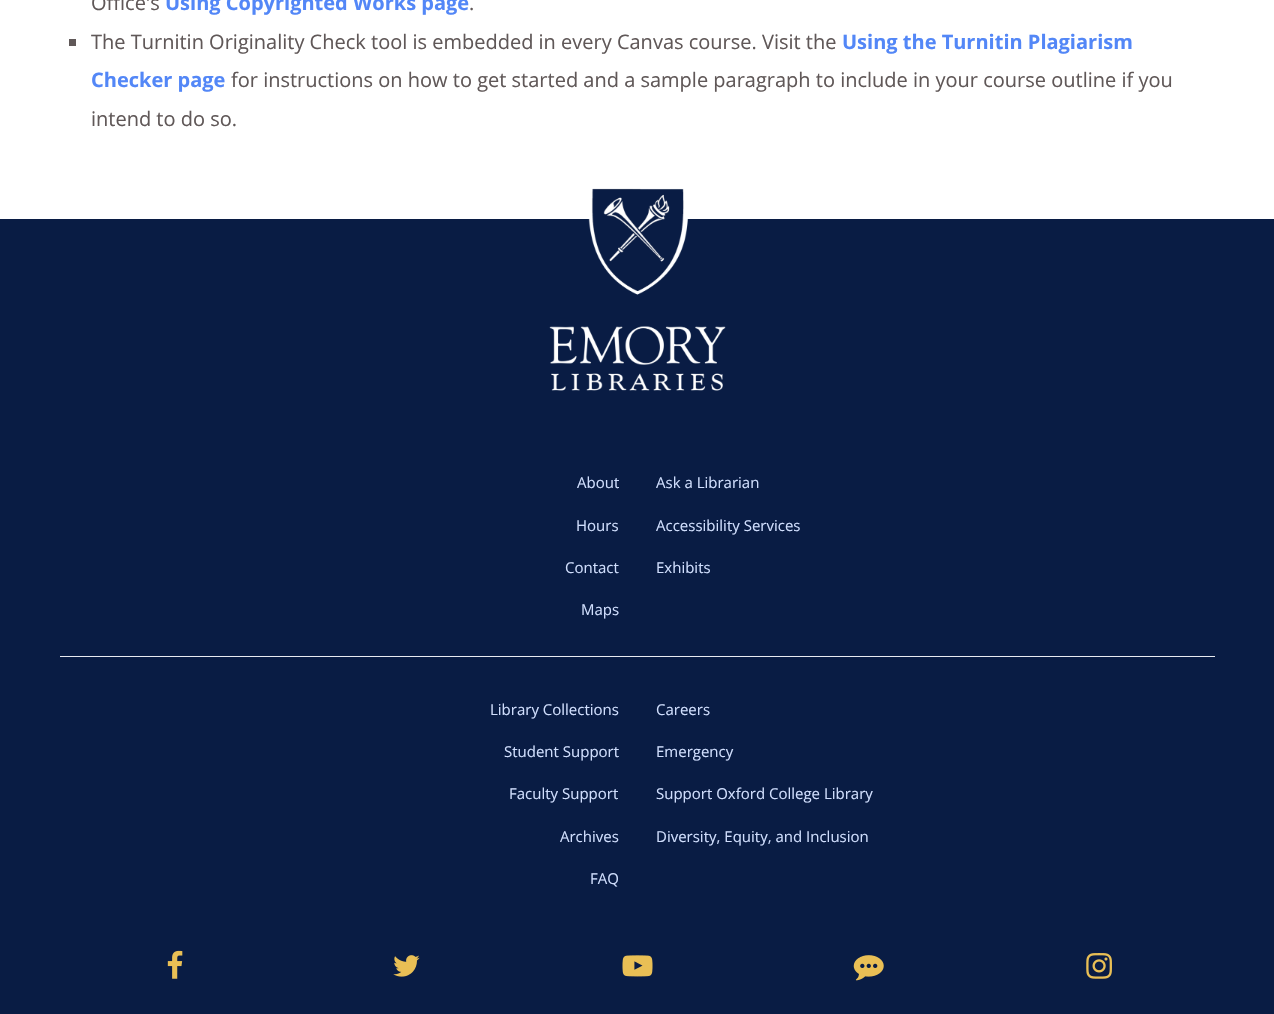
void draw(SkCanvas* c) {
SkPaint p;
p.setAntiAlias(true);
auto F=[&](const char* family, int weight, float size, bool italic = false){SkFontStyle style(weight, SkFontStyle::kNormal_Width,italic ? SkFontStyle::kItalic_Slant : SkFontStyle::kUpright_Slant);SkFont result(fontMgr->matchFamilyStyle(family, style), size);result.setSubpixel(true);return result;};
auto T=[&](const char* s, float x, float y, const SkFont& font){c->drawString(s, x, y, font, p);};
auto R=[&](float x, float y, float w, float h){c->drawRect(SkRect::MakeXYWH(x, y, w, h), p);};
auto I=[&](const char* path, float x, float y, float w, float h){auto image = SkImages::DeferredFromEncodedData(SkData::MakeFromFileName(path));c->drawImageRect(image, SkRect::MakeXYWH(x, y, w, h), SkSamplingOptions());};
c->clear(0xffffffff);
auto f1 = F("Open Sans",400,20);
p.setColor(0xff605858);
T("Office's",91,10,f1);
auto f2 = F("Open Sans",700,20);
p.setColor(0xff5387f7);
T("Using Copyrighted Works page",165,10,f2);
p.setColor(0xff605858);
T(".",469,10,f1);
R(69,39,7,7);
T("The Turnitin Originality Check tool is embedded in every Canvas course. Visit the",91,49,f1);
p.setColor(0xff5387f7);
T("Using the Turnitin Plagiarism",842,49,f2);
T("Checker page",91,87,f2);
p.setColor(0xff605858);
T("for instructions on how to get started and a sample paragraph to include in your course outline if you",231,87,f1);
T("intend to do so.",91,126,f1);
p.setColor(0xff091c44);
R(0,219,1274,795);
I("1.png",549,188,177,203);
p.setColor(0xffe7eaf1);
R(60,656,1155,1);
auto f3 = F("Open Sans",400,15);
p.setColor(0xffd0defd);
T("About",577,488,f3);
T("Ask a Librarian",656,488,f3);
T("Hours",576,531,f3);
T("Accessibility Services",656,531,f3);
T("Contact",565,573,f3);
T("Exhibits",656,573,f3);
T("Maps",581,615,f3);
T("Library Collections",490,715,f3);
T("Careers",656,715,f3);
T("Student Support",504,757,f3);
T("Emergency",656,757,f3);
T("Faculty Support",509,799,f3);
T("Support Oxford College Library",656,799,f3);
T("Archives",560,842,f3);
T("Diversity, Equity, and Inclusion",656,842,f3);
T("FAQ",590,884,f3);
I("2.png",167,950,16,29);
I("3.png",393,955,27,22);
I("4.png",622,955,31,22);
I("5.png",853,955,31,26);
I("6.png",1086,953,26,26);
}
